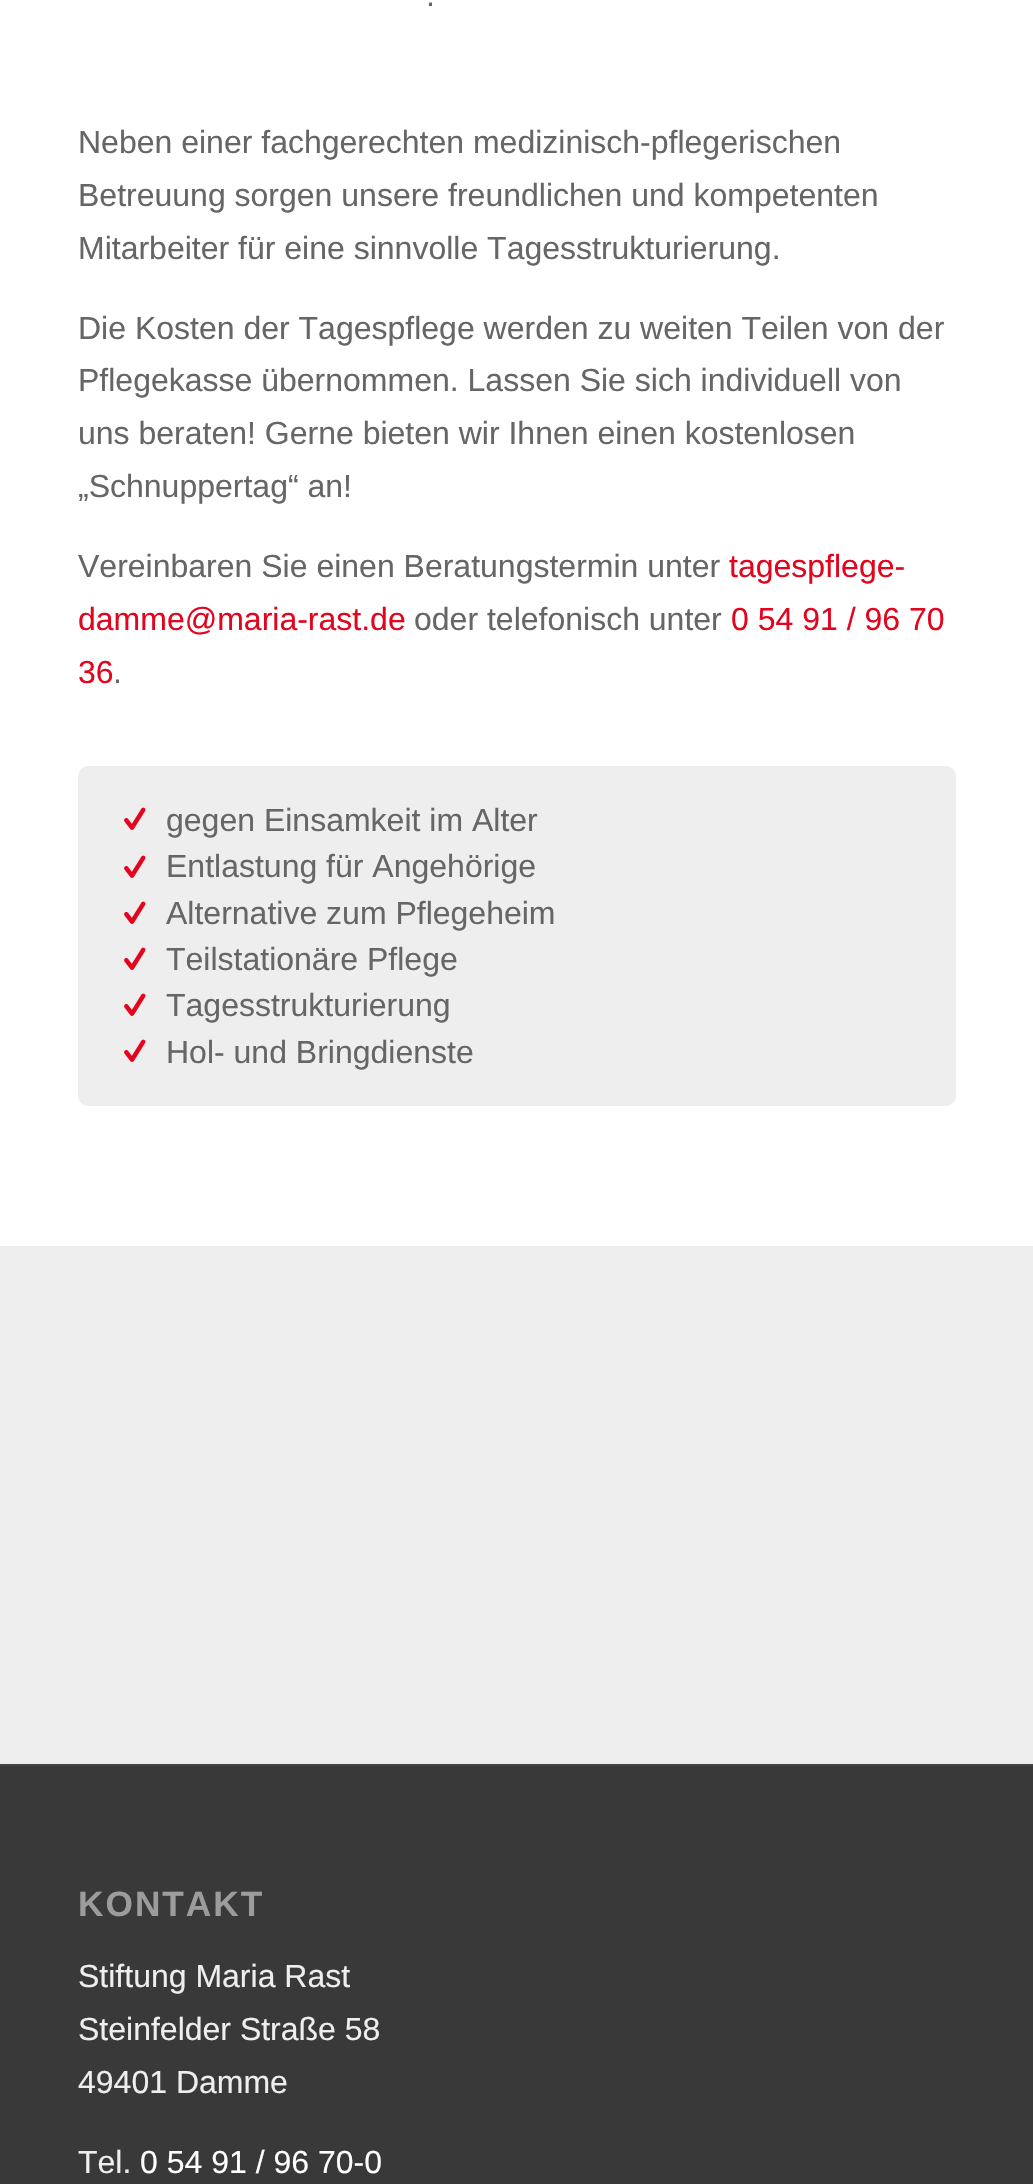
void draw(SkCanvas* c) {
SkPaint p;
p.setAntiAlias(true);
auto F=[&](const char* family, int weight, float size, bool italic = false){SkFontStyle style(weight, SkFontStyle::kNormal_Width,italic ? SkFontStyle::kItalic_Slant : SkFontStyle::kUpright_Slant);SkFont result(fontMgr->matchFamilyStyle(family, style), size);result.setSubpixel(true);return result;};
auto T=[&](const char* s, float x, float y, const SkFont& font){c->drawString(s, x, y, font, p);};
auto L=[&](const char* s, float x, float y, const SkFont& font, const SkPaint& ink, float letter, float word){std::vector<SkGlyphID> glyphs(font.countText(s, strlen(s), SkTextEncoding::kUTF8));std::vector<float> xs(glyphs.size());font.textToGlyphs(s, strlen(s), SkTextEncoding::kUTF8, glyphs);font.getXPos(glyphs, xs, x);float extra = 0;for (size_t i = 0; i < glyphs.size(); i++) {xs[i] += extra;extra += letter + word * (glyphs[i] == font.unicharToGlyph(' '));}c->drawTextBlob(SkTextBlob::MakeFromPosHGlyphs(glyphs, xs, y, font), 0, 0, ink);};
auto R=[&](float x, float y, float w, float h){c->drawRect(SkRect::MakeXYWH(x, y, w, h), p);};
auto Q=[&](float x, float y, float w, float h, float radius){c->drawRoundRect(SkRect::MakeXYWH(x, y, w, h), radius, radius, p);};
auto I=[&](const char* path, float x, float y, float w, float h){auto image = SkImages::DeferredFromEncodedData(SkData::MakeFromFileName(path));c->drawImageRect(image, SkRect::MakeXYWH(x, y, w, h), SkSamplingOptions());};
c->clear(0xffffffff);
auto f1 = F("Liberation Sans",400,32);
p.setColor(0xff666666);
T(".",426,6,f1);
T("Neben einer fachgerechten medizinisch-pflegerischen",78,153,f1);
T("Betreuung sorgen unsere freundlichen und kompetenten",78,206,f1);
T("Mitarbeiter für eine sinnvolle Tagesstrukturierung.",78,259,f1);
T("Die Kosten der Tagespflege werden zu weiten Teilen von der",78,339,f1);
T("Pflegekasse übernommen. Lassen Sie sich individuell von",78,391,f1);
T("uns beraten! Gerne bieten wir Ihnen einen kostenlosen",78,444,f1);
T("„Schnuppertag“ an!",78,497,f1);
T("Vereinbaren Sie einen Beratungstermin unter",78,577,f1);
p.setColor(0xffe3041e);
T("tagespflege-",729,577,f1);
T("damme@maria-rast.de",78,630,f1);
p.setColor(0xff666666);
T("oder telefonisch unter",414,630,f1);
p.setColor(0xffe3041e);
T("0 54 91 / 96 70",731,630,f1);
T("36",78,683,f1);
p.setColor(0xff666666);
T(".",113,683,f1);
p.setColor(0xffeeeeee);
Q(78,766,878,340,10);
I("1.png",124,807,22,23);
p.setColor(0xff666666);
T("gegen Einsamkeit im Alter",166,831,f1);
I("1.png",124,855,22,23);
T("Entlastung für Angehörige",166,877,f1);
I("1.png",124,901,22,23);
T("Alternative zum Pflegeheim",166,924,f1);
I("1.png",124,947,22,23);
T("Teilstationäre Pflege",166,970,f1);
I("1.png",124,993,22,23);
T("Tagesstrukturierung",166,1016,f1);
I("1.png",124,1039,22,23);
T("Hol- und Bringdienste",166,1063,f1);
p.setColor(0xffeeeeee);
R(0,1246,1033,518);
p.setColor(0xff393939);
R(0,1766,1033,418);
p.setColor(0xff444444);
R(0,1764,1033,2);
auto f2 = F("Liberation Sans",700,35.25);
p.setColor(0xff9c9c9c);
L("KONTAKT",78,1916,f2,p,2,0);
p.setColor(0xffeeeeee);
T("Stiftung Maria Rast",78,1987,f1);
T("Steinfelder Straße 58",78,2040,f1);
T("49401 Damme",78,2093,f1);
T("Tel.",78,2173,f1);
p.setColor(0xffffffff);
T("0 54 91 / 96 70-0",140,2173,f1);
}
